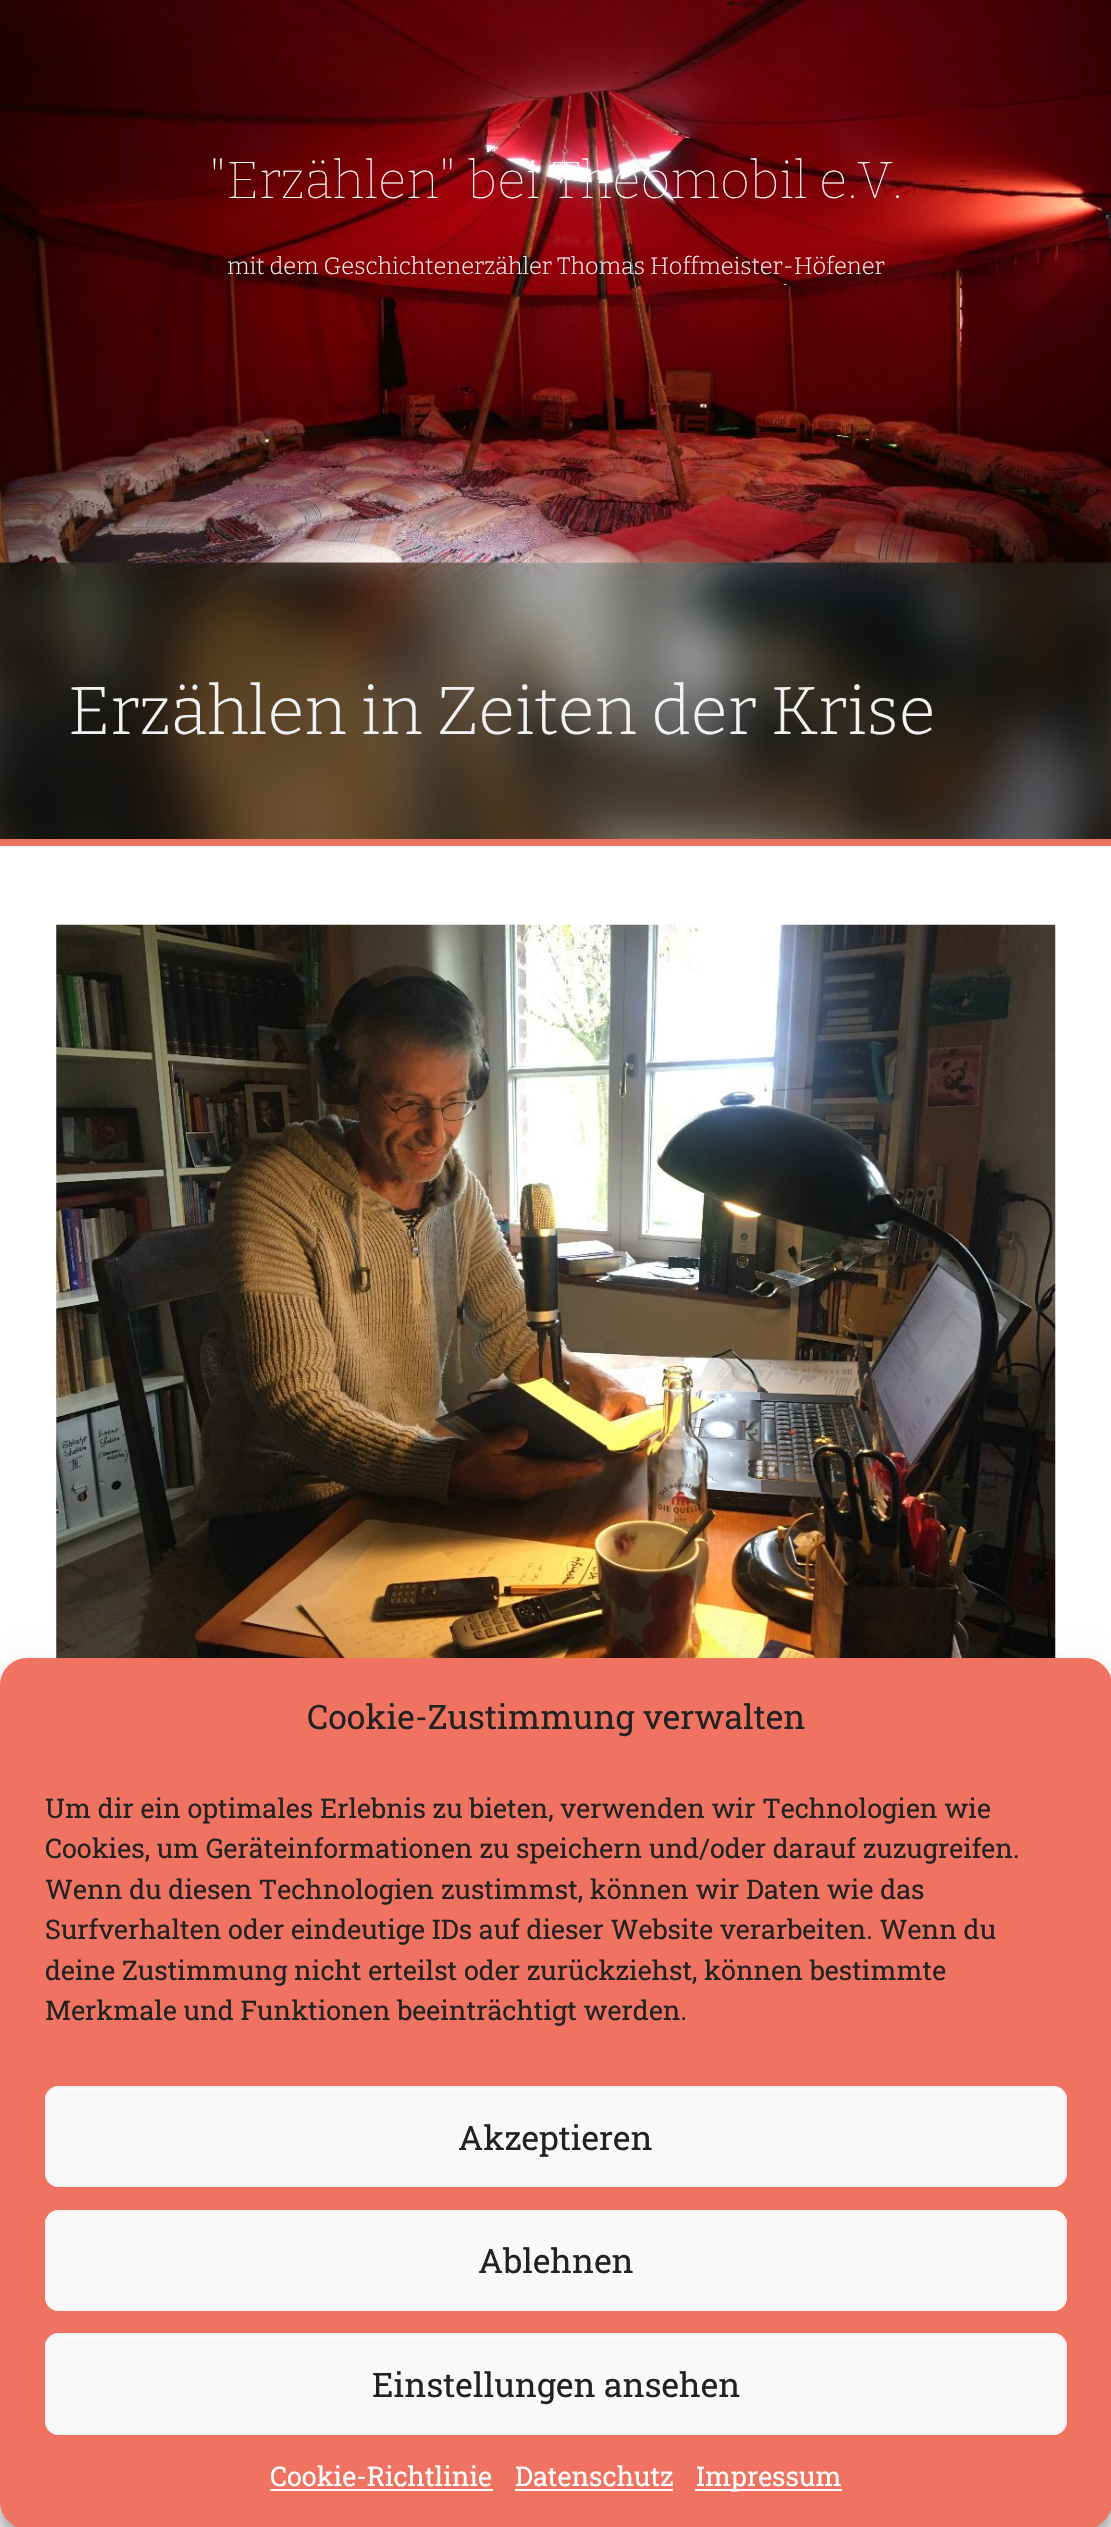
void draw(SkCanvas* c) {
SkPaint p;
p.setAntiAlias(true);
auto F=[&](const char* family, int weight, float size, bool italic = false){SkFontStyle style(weight, SkFontStyle::kNormal_Width,italic ? SkFontStyle::kItalic_Slant : SkFontStyle::kUpright_Slant);SkFont result(fontMgr->matchFamilyStyle(family, style), size);result.setSubpixel(true);return result;};
auto T=[&](const char* s, float x, float y, const SkFont& font){c->drawString(s, x, y, font, p);};
auto R=[&](float x, float y, float w, float h){c->drawRect(SkRect::MakeXYWH(x, y, w, h), p);};
auto Q=[&](float x, float y, float w, float h, float radius){c->drawRoundRect(SkRect::MakeXYWH(x, y, w, h), radius, radius, p);};
auto I=[&](const char* path, float x, float y, float w, float h){auto image = SkImages::DeferredFromEncodedData(SkData::MakeFromFileName(path));c->drawImageRect(image, SkRect::MakeXYWH(x, y, w, h), SkSamplingOptions());};
auto P=[&](const char* data, bool evenOdd = false){SkPath result = *SkParsePath::FromSVGString(data);if (evenOdd) result.setFillType(SkPathFillType::kEvenOdd);return result;};
c->clear(0xffffffff);
I("1.png",0,0,1111,597);
auto f1 = F("Bitter",100,52);
p.setColor(0xffffffff);
T("\"Erzählen\" bei Theomobil e.V.",209,198,f1);
auto f2 = F("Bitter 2",100,23.6);
p.setColor(0xfff2f2f2);
T("mit dem Geschichtenerzähler Thomas Hoffmeister-Höfener",227,274,f2);
I("2.png",0,562,1111,277);
p.setColor(0x1a000000);
R(0,563,1111,276);
auto f3 = F("Bitter 2",100,67.5);
p.setColor(0xfff2f2f2);
T("Erzählen in Zeiten der Krise",68,734,f3);
p.setColor(0xfff07261);
R(0,839,1111,7);
I("3.png",56,924,1000,734);
p.setColor(0x3b000000);
p.setMaskFilter(SkMaskFilter::MakeBlur(kNormal_SkBlurStyle, 7));
c->drawRoundRect(SkRect::MakeXYWH(0,1672,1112,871),27,27,p);
p.setMaskFilter(nullptr);
p.setColor(0x30000000);
p.setMaskFilter(SkMaskFilter::MakeBlur(kNormal_SkBlurStyle, 22.5));
c->drawRoundRect(SkRect::MakeXYWH(0,1681,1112,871),27,27,p);
p.setMaskFilter(nullptr);
p.setColor(0xfff07261);
Q(0,1658,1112,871,27);
auto f4 = F("Roboto Slab",400,33.75);
p.setColor(0xff222222);
T("Cookie-Zustimmung verwalten",307,1729,f4);
auto f5 = F("Roboto Slab",400,27);
T("Um dir ein optimales Erlebnis zu bieten, verwenden wir Technologien wie",45,1818,f5);
T("Cookies, um Geräteinformationen zu speichern und/oder darauf zuzugreifen.",45,1858,f5);
T("Wenn du diesen Technologien zustimmst, können wir Daten wie das",45,1899,f5);
T("Surfverhalten oder eindeutige IDs auf dieser Website verarbeiten. Wenn du",45,1939,f5);
T("deine Zustimmung nicht erteilst oder zurückziehst, können bestimmte",45,1980,f5);
T("Merkmale und Funktionen beeinträchtigt werden.",45,2020,f5);
p.setColor(0xfff9f9f9);
Q(45,2086,1022,101,14);
p.setColor(0xfffcfcfc);
c->drawPath(P("M58 2090h995c6 0 11 5 11 12v-3c0-6-5-11-11-11h-995c-6 0-11 5-11 11v3c0-7 5-12 11-12z"),p);
p.setStroke(true);
p.setStrokeWidth(2);
p.setColor(0xfff2f2f2);
c->drawRoundRect(SkRect::MakeXYWH(46,2087,1020,99),13,13,p);
p.setStroke(false);
p.setColor(0xff222222);
T("Akzeptieren",458,2150,f4);
p.setColor(0xfff9f9f9);
Q(45,2210,1022,101,14);
p.setColor(0xfffcfcfc);
c->drawPath(P("M58 2214h995c6 0 11 5 11 11v-2c0-6-5-11-11-11h-995c-6 0-11 5-11 11v2c0-6 5-11 11-11z"),p);
p.setStroke(true);
p.setColor(0xfff2f2f2);
c->drawRoundRect(SkRect::MakeXYWH(46,2211,1020,99),13,13,p);
p.setStroke(false);
p.setColor(0xff222222);
T("Ablehnen",478,2273,f4);
p.setColor(0xfff9f9f9);
Q(45,2333,1022,102,14);
p.setColor(0xfffcfcfc);
c->drawPath(P("M58 2338h995c6 0 11 5 11 11v-2c0-6-5-11-11-11h-995c-6 0-11 5-11 11v2c0-6 5-11 11-11z"),p);
p.setStroke(true);
p.setColor(0xfff2f2f2);
c->drawRoundRect(SkRect::MakeXYWH(46,2334,1020,100),13,13,p);
p.setStroke(false);
p.setColor(0xff222222);
T("Einstellungen ansehen",372,2397,f4);
p.setColor(0xffffffff);
T("Cookie-Richtlinie",270,2486,f5);
R(270,2489,223,2);
T("Datenschutz",515,2486,f5);
R(515,2489,158,2);
R(695,2489,147,2);
T("Impressum",696,2486,f5);
}
